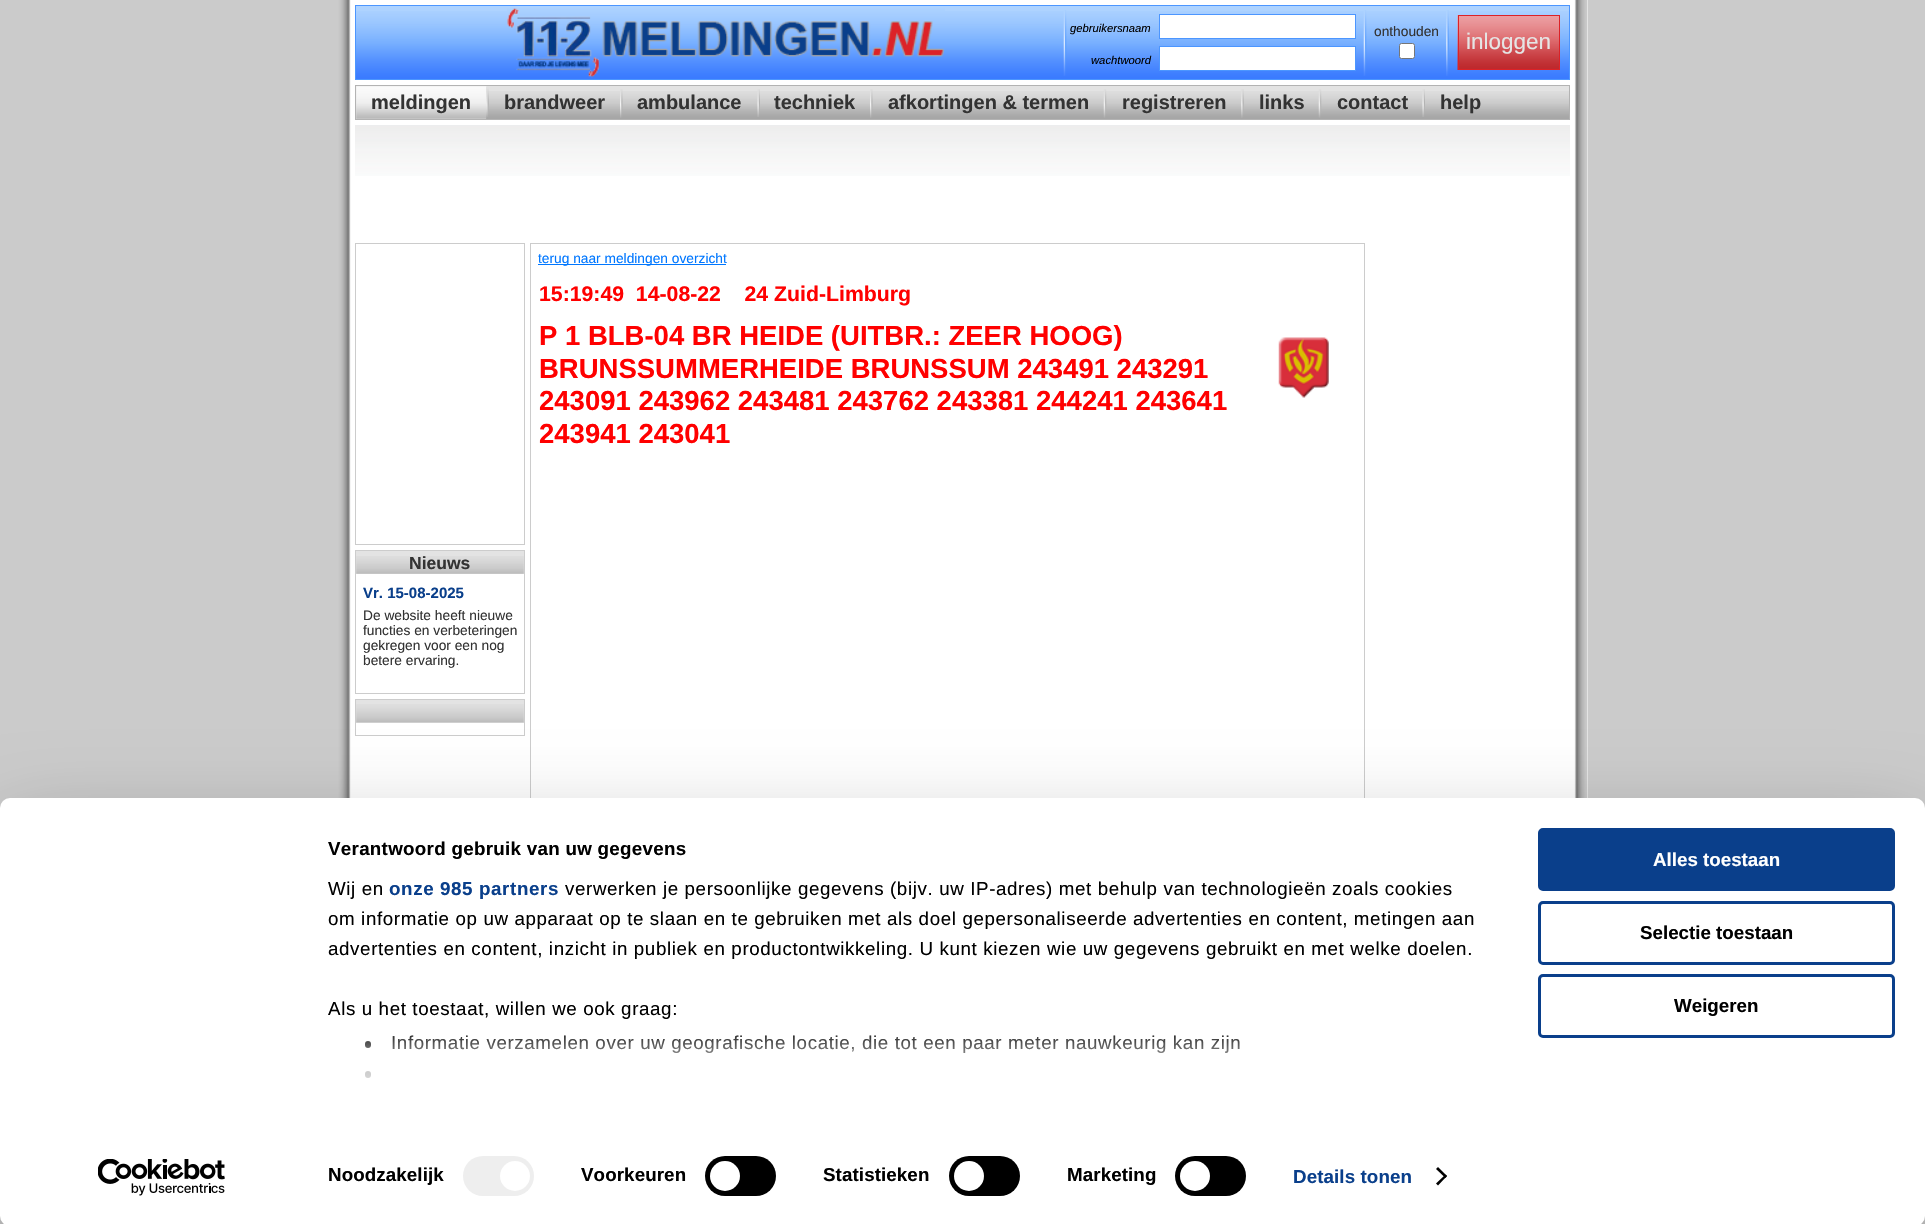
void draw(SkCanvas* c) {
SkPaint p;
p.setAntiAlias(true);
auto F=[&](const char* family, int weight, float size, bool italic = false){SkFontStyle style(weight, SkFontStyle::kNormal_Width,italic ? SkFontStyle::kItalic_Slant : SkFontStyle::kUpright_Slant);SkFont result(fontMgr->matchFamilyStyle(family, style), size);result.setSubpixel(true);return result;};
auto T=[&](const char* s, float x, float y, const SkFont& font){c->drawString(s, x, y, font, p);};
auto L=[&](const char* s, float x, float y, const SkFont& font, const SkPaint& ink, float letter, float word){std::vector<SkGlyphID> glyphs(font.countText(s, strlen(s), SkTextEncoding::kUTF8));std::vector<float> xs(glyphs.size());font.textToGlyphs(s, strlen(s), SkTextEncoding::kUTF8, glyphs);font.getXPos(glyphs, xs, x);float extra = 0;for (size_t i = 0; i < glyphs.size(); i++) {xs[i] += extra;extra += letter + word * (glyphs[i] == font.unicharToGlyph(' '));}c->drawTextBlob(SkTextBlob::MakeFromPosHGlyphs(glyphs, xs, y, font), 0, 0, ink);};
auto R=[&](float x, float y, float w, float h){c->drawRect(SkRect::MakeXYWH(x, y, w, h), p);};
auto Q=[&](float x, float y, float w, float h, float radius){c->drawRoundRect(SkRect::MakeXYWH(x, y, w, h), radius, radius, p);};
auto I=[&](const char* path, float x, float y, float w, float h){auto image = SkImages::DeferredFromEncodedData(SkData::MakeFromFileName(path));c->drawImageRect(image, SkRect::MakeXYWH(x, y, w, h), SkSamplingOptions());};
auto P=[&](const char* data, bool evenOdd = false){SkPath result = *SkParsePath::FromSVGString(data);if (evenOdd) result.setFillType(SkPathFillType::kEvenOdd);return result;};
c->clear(0xffcbcbcb);
p.setColor(0xffffffff);
R(1587,0,1,798);
I("1.png",338,0,1250,798);
p.setColor(0xffaed3ff);
R(356,6,1213,5);
I("2.png",356,11,1213,68);
p.setStroke(true);
p.setStrokeWidth(1);
p.setColor(0xff4c96ff);
c->drawRect(SkRect::MakeXYWH(355.5,5.5,1214,74),p);
I("3.png",507,8,438,70);
I("4.png",1063,10,4,66);
auto f1 = F("Liberation Sans",400,11.25,true);
p.setStroke(false);
p.setColor(0xff000000);
T("gebruikersnaam",1070,32,f1);
p.setColor(0xffffffff);
c->drawRect(SkRect::MakeXYWH(1159.5,14.5,196,24),p);
p.setStroke(true);
p.setColor(0xff4c96ff);
c->drawRect(SkRect::MakeXYWH(1159.5,14.5,196,24),p);
p.setStroke(false);
p.setColor(0xff000000);
T("wachtwoord",1091,64,f1);
p.setColor(0xffffffff);
c->drawRect(SkRect::MakeXYWH(1159.5,46.5,196,24),p);
p.setStroke(true);
p.setColor(0xff4c96ff);
c->drawRect(SkRect::MakeXYWH(1159.5,46.5,196,24),p);
I("4.png",1363,10,4,66);
auto f2 = F("Liberation Sans",400,13.75);
p.setStroke(false);
p.setColor(0xff333333);
T("onthouden",1374,36,f2);
p.setColor(0xffffffff);
c->drawRoundRect(SkRect::MakeXYWH(1399.5,43.5,15,15),2,2,p);
p.setStroke(true);
p.setColor(0xff767676);
c->drawRoundRect(SkRect::MakeXYWH(1399.5,43.5,15,15),2,2,p);
I("5.png",1446,10,3,66);
I("6.png",1457,15,102,55);
p.setColor(0xffdc2227);
c->drawRect(SkRect::MakeXYWH(1458.5,15.5,101,54),p);
auto f3 = F("Liberation Sans",400,22.5);
p.setStroke(false);
p.setColor(0xffe5e5e5);
T("inloggen",1466,49,f3);
p.setColor(0xffe3e3e3);
R(486,86,1083,5);
I("7.png",486,91,1083,28);
p.setStroke(true);
p.setColor(0xffb3b3b3);
c->drawRect(SkRect::MakeXYWH(355.5,85.5,1214,34),p);
p.setStroke(false);
p.setColor(0xffe3e3e3);
R(356,86,130,33);
I("8.png",356,86,131,33);
auto f4 = F("Liberation Sans",700,20);
p.setColor(0xff333333);
T("meldingen",371,109,f4);
I("9.png",486,87,3,30);
T("brandweer",504,109,f4);
I("10.png",620,89,3,29);
T("ambulance",637,109,f4);
I("11.png",757,89,3,28);
T("techniek",774,109,f4);
I("10.png",870,89,3,29);
T("afkortingen & termen",888,109,f4);
I("12.png",1103,89,4,29);
T("registreren",1122,109,f4);
I("13.png",1241,89,3,29);
T("links",1259,109,f4);
I("12.png",1318,89,4,29);
T("contact",1337,109,f4);
I("11.png",1422,89,3,28);
T("help",1440,109,f4);
I("14.png",355,125,1215,51);
p.setStroke(true);
p.setColor(0xffcccccc);
c->drawRect(SkRect::MakeXYWH(530.5,243.5,834,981),p);
p.setStroke(false);
p.setColor(0xff0077ff);
R(538,264,188,1);
T("terug naar meldingen overzicht",538,263,f2);
auto f5 = F("Liberation Sans",700,21.25);
p.setColor(0xffff0000);
T("15:19:49  14-08-22    24 Zuid-Limburg",539,301,f5);
I("15.png",1278,337,51,61);
auto f6 = F("Liberation Sans",700,27.5);
T("P 1 BLB-04 BR HEIDE (UITBR.: ZEER HOOG)",539,345,f6);
T("BRUNSSUMMERHEIDE BRUNSSUM 243491 243291",539,378,f6);
T("243091 243962 243481 243762 243381 244241 243641",539,410,f6);
T("243941 243041",539,443,f6);
p.setStroke(true);
p.setColor(0xffcccccc);
c->drawRect(SkRect::MakeXYWH(355.5,243.5,169,301),p);
c->drawRect(SkRect::MakeXYWH(355.5,550.5,169,143),p);
p.setStroke(false);
p.setColor(0xffe3e3e3);
R(356,551,168,23);
I("16.png",356,556,168,18);
auto f7 = F("Liberation Sans",700,17.5);
p.setColor(0xff333333);
T("Nieuws",409,569,f7);
auto f8 = F("Liberation Sans",700,15);
p.setColor(0xff0a3f8b);
T("Vr. 15-08-2025",363,598,f8);
p.setColor(0xff333333);
T("De website heeft nieuwe",363,620,f2);
T("functies en verbeteringen",363,635,f2);
T("gekregen voor een nog",363,650,f2);
T("betere ervaring.",363,665,f2);
p.setStroke(true);
p.setColor(0xffcccccc);
c->drawRect(SkRect::MakeXYWH(355.5,699.5,169,36),p);
p.setStroke(false);
p.setColor(0xffe3e3e3);
R(356,700,168,23);
I("17.png",356,704,168,19);
p.setColor(0x4d000000);
p.setMaskFilter(SkMaskFilter::MakeBlur(kNormal_SkBlurStyle, 44));
c->drawRoundRect(SkRect::MakeXYWH(0,835,1925,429),10,10,p);
p.setMaskFilter(nullptr);
p.setColor(0xffffffff);
Q(0,798,1925,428,10);
auto f9 = F("Liberation Sans",700,18.75);
p.setColor(0xff000000);
L("Verantwoord gebruik van uw gegevens",328,855,f9,p,.3,0);
auto f10 = F("Liberation Sans",400,18.75);
L("Wij en",328,895,f10,p,.62,0);
p.setColor(0xff0a3f8b);
L("onze 985 partners",389,895,f9,p,.62,0);
p.setColor(0xff000000);
L("verwerken je persoonlijke gegevens (bijv. uw IP-adres) met behulp van technologieën zoals cookies",565,895,f10,p,.62,0);
L("om informatie op uw apparaat op te slaan en te gebruiken met als doel gepersonaliseerde advertenties en content, metingen aan",328,925,f10,p,.62,0);
L("advertenties en content, inzicht in publiek en productontwikkeling. U kunt kiezen wie uw gegevens gebruikt en met welke doelen.",328,955,f10,p,.62,0);
L("Als u het toestaat, willen we ook graag:",328,1015,f10,p,.62,0);
Q(365,1041,6,7,3);
L("Informatie verzamelen over uw geografische locatie, die tot een paar meter nauwkeurig kan zijn",391,1049,f10,p,.62,0);
Q(365,1071,6,7,3);
{
const SkColor colors[] = {0xffffffff,0xccffffff,0x00ffffff};
const float stops[] = {0,.5,1};
const SkPoint ends[] = {{903,1118}, {903,1024}};
p.setShader(SkGradientShader::MakeLinear(ends, colors, stops, 3, SkTileMode::kClamp));
p.setAlpha(255);
}
R(365,1035,876,43);
p.setShader(nullptr);
p.setColor(0xff000000);
L("Noodzakelijk",328,1181,f9,p,.1,0);
p.setColor(0xffeeeeee);
Q(463,1156,71,40,20);
p.setColor(0xffffffff);
c->drawCircle(515,1176,15,p);
p.setColor(0xff000000);
L("Voorkeuren",581,1181,f9,p,.1,0);
Q(705,1156,71,40,20);
p.setColor(0xffffffff);
c->drawCircle(725,1176,15,p);
p.setColor(0xff000000);
L("Statistieken",823,1181,f9,p,.1,0);
Q(949,1156,71,40,20);
p.setColor(0xffffffff);
c->drawCircle(969,1176,15,p);
p.setColor(0xff000000);
L("Marketing",1067,1181,f9,p,.1,0);
Q(1175,1156,71,40,20);
p.setColor(0xffffffff);
c->drawCircle(1195,1176,15,p);
p.setColor(0xff0a3f8b);
L("Details tonen",1293,1183,f9,p,.1,0);
p.setColor(0xff000000);
c->drawPath(P("M1438 1167l9 9l-1.5 2l-9.5-9z"),p);
c->drawPath(P("M1445.5 1174.5l1.5 1.5l-9 9.5l-2-2z"),p);
p.setColor(0xff0a3f8b);
c->drawRoundRect(SkRect::MakeXYWH(1539.5,829.5,354,60),3.5,3.5,p);
p.setStroke(true);
p.setStrokeWidth(3);
c->drawRoundRect(SkRect::MakeXYWH(1539.5,829.5,354,60),3.5,3.5,p);
p.setStroke(false);
p.setColor(0xffffffff);
T("Alles toestaan",1653,866,f9);
p.setStroke(true);
p.setColor(0xff0a3f8b);
c->drawRoundRect(SkRect::MakeXYWH(1539.5,902.5,354,61),3.5,3.5,p);
p.setStroke(false);
p.setColor(0xff000000);
T("Selectie toestaan",1640,939,f9);
p.setStroke(true);
p.setColor(0xff0a3f8b);
c->drawRoundRect(SkRect::MakeXYWH(1539.5,975.5,354,61),3.5,3.5,p);
p.setStroke(false);
p.setColor(0xff000000);
T("Weigeren",1674,1012,f9);
I("18.png",98,1159,127,37);
}
